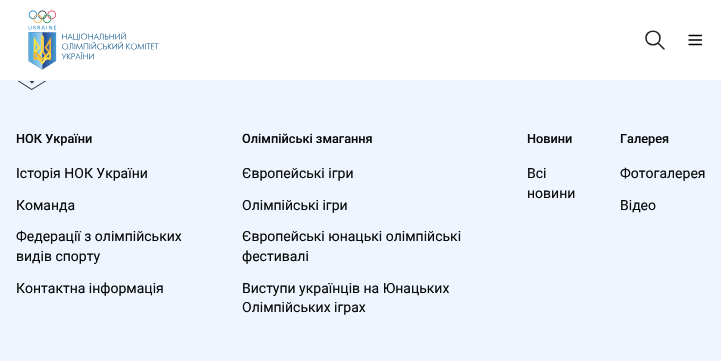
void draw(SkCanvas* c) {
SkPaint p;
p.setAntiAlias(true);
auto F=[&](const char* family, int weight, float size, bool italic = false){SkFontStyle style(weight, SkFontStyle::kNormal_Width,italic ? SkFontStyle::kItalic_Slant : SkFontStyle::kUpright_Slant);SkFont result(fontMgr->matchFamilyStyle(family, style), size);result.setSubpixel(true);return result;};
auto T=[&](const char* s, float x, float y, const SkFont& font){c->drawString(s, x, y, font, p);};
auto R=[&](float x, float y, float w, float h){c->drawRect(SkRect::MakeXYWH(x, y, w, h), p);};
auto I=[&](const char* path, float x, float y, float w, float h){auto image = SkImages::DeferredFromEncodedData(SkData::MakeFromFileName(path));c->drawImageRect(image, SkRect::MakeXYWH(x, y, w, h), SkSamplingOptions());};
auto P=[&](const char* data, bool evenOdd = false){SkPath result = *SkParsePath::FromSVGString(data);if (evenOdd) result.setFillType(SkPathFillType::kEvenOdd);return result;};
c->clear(0xffeef5ff);
p.setColor(0xffffffff);
R(0,0,721,80);
I("1.png",28,10,131,60);
p.setStroke(true);
p.setStrokeWidth(1.6);
p.setStrokeCap(SkPaint::kRound_Cap);
p.setStrokeJoin(SkPaint::kRound_Join);
p.setColor(0xff242424);
c->drawPath(P("M664 49l-6-6m-12-5c0 9 14 9 14 0c0-9-14-9-14 0z"),p);
p.setStrokeWidth(1.3);
p.setColor(0xff000000);
c->drawPath(P("M689 35.5h12.5m-12.5 4.5h12.5m-12.5 4.5h12.5"),p);
I("2.png",17,81,30,9);
auto f1 = F("Roboto",500,12.75);
p.setStroke(false);
p.setColor(0xff0a0a0a);
T("НОК України",16,143,f1);
auto f2 = F("Roboto",400,14);
T("Історія НОК України",16,178,f2);
T("Команда",16,210,f2);
T("Федерації з олімпійських",16,241,f2);
T("видів спорту",16,261,f2);
T("Контактна інформація",16,293,f2);
T("Олімпійські змагання",242,143,f1);
T("Європейські ігри",242,178,f2);
T("Олімпійські ігри",242,210,f2);
T("Європейські юнацькі олімпійські",242,241,f2);
T("фестивалі",242,261,f2);
T("Виступи українців на Юнацьких",242,293,f2);
T("Олімпійських іграх",242,312,f2);
T("Новини",527,143,f1);
T("Всі",527,178,f2);
T("новини",527,198,f2);
T("Галерея",620,143,f1);
T("Фотогалерея",620,178,f2);
T("Відео",620,210,f2);
}
